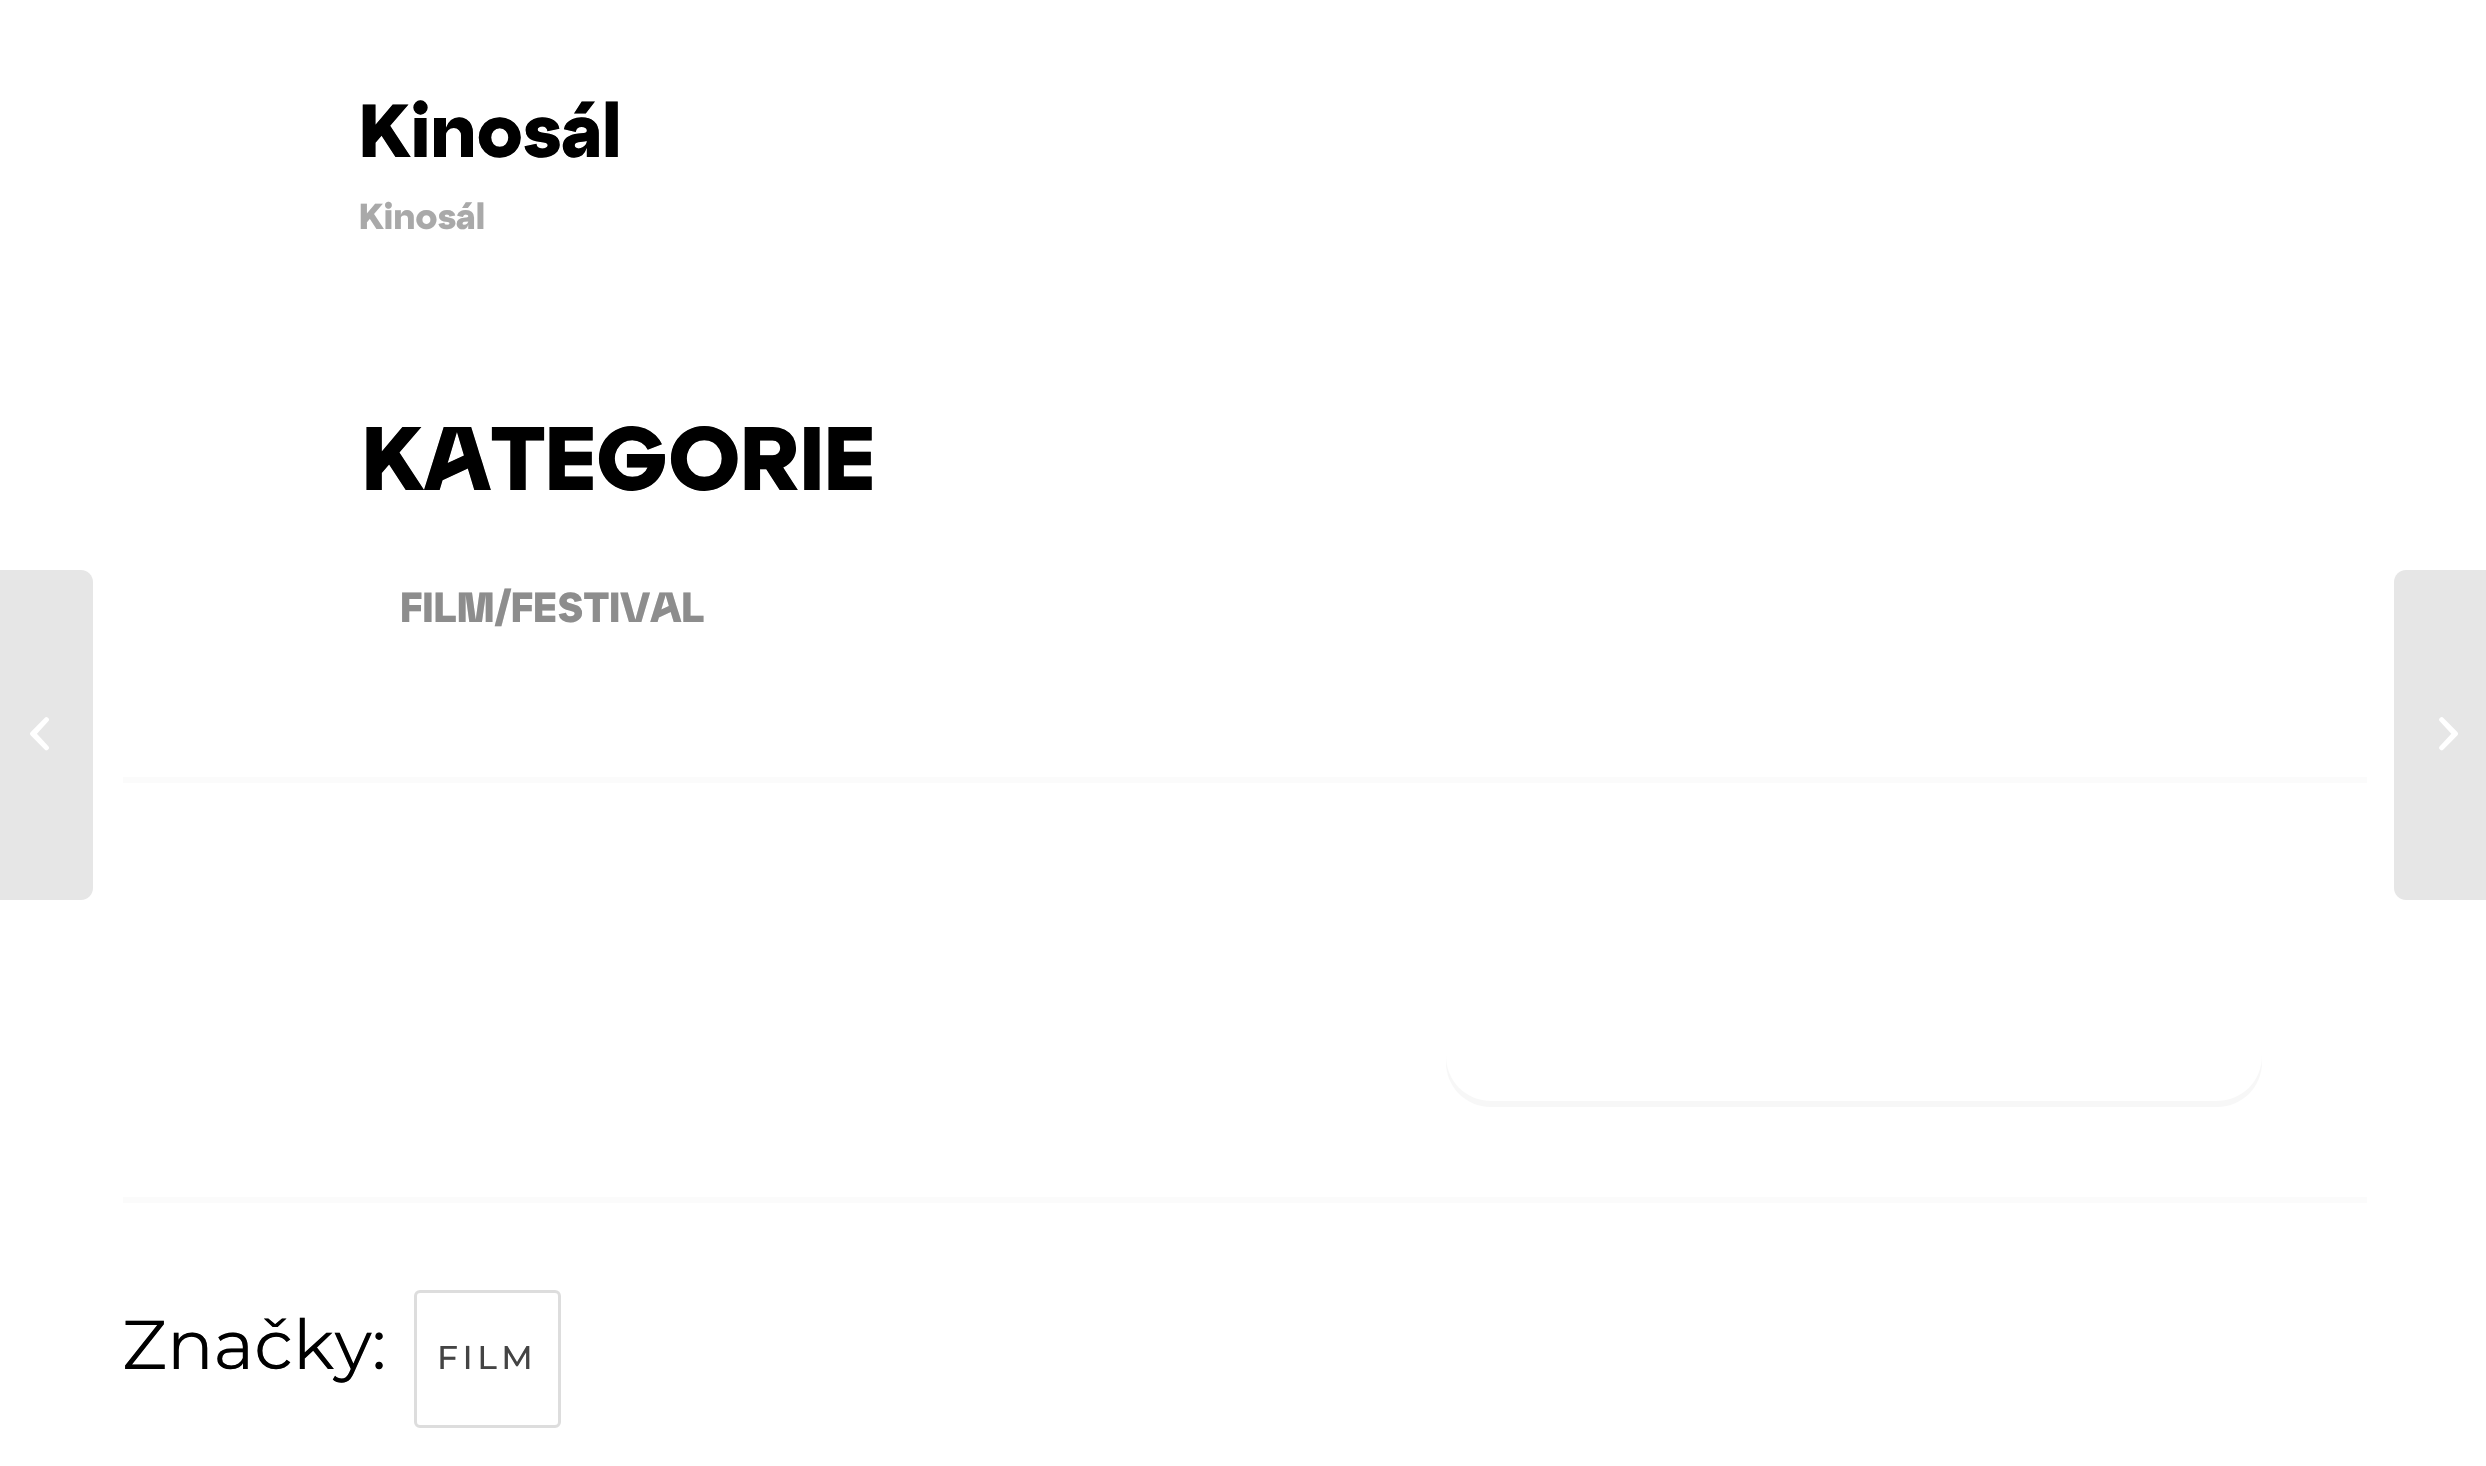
void draw(SkCanvas* c) {
SkPaint p;
p.setAntiAlias(true);
auto F=[&](const char* family, int weight, float size, bool italic = false){SkFontStyle style(weight, SkFontStyle::kNormal_Width,italic ? SkFontStyle::kItalic_Slant : SkFontStyle::kUpright_Slant);SkFont result(fontMgr->matchFamilyStyle(family, style), size);result.setSubpixel(true);return result;};
auto T=[&](const char* s, float x, float y, const SkFont& font){c->drawString(s, x, y, font, p);};
auto L=[&](const char* s, float x, float y, const SkFont& font, const SkPaint& ink, float letter, float word){std::vector<SkGlyphID> glyphs(font.countText(s, strlen(s), SkTextEncoding::kUTF8));std::vector<float> xs(glyphs.size());font.textToGlyphs(s, strlen(s), SkTextEncoding::kUTF8, glyphs);font.getXPos(glyphs, xs, x);float extra = 0;for (size_t i = 0; i < glyphs.size(); i++) {xs[i] += extra;extra += letter + word * (glyphs[i] == font.unicharToGlyph(' '));}c->drawTextBlob(SkTextBlob::MakeFromPosHGlyphs(glyphs, xs, y, font), 0, 0, ink);};
auto R=[&](float x, float y, float w, float h){c->drawRect(SkRect::MakeXYWH(x, y, w, h), p);};
auto I=[&](const char* path, float x, float y, float w, float h){auto image = SkImages::DeferredFromEncodedData(SkData::MakeFromFileName(path));c->drawImageRect(image, SkRect::MakeXYWH(x, y, w, h), SkSamplingOptions());};
auto P=[&](const char* data, bool evenOdd = false){SkPath result = *SkParsePath::FromSVGString(data);if (evenOdd) result.setFillType(SkPathFillType::kEvenOdd);return result;};
c->clear(0xffffffff);
p.setColor(0xffe6e6e6);
c->drawPath(P("M0 570h81c6.5 0 12 5.5 12 12v306c0 6.5-5.5 12-12 12h-81z"),p);
I("1.png",30,717,19,34);
p.setColor(0xfffbfbfb);
R(123,777,2244,6);
auto f1 = F("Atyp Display",700,75);
p.setColor(0xff000000);
T("Kinosál",359,157,f1);
auto f2 = F("Atyp Display",700,36);
p.setColor(0xffa9a9a9);
T("Kinosál",359,229,f2);
auto f3 = F("Atyp Display",700,90);
p.setColor(0xff000000);
T("KATEGORIE",362,490,f3);
auto f4 = F("Atyp Display",700,42);
p.setColor(0xff8d8d8d);
T("FILM/FESTIVAL",400,622,f4);
p.setColor(0xfffbfbfb);
R(123,1197,2244,6);
p.setColor(0xfff7f7f7);
c->drawPath(P("M1446 1056v6c0 25 20 45 45 45h726c25 0 45-20 45-45v-6c0 25-20 45-45 45h-726c-25 0-45-20-45-45z"),p);
auto f5 = F("Montserrat",400,69);
p.setColor(0xff000000);
T("Značky:",122,1369,f5);
p.setStroke(true);
p.setStrokeWidth(3);
p.setColor(0xffdddddd);
c->drawRoundRect(SkRect::MakeXYWH(415.5,1291.5,144,135),4.5,4.5,p);
auto f6 = F("Montserrat",500,33);
p.setStroke(false);
p.setColor(0xff444444);
L("FILM",437,1369,f6,p,4.5,0);
p.setColor(0xffe6e6e6);
c->drawPath(P("M2406 570h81v330h-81c-6.5 0-12-5.5-12-12v-306c0-6.5 5.5-12 12-12z"),p);
I("2.png",2439,717,19,34);
}
